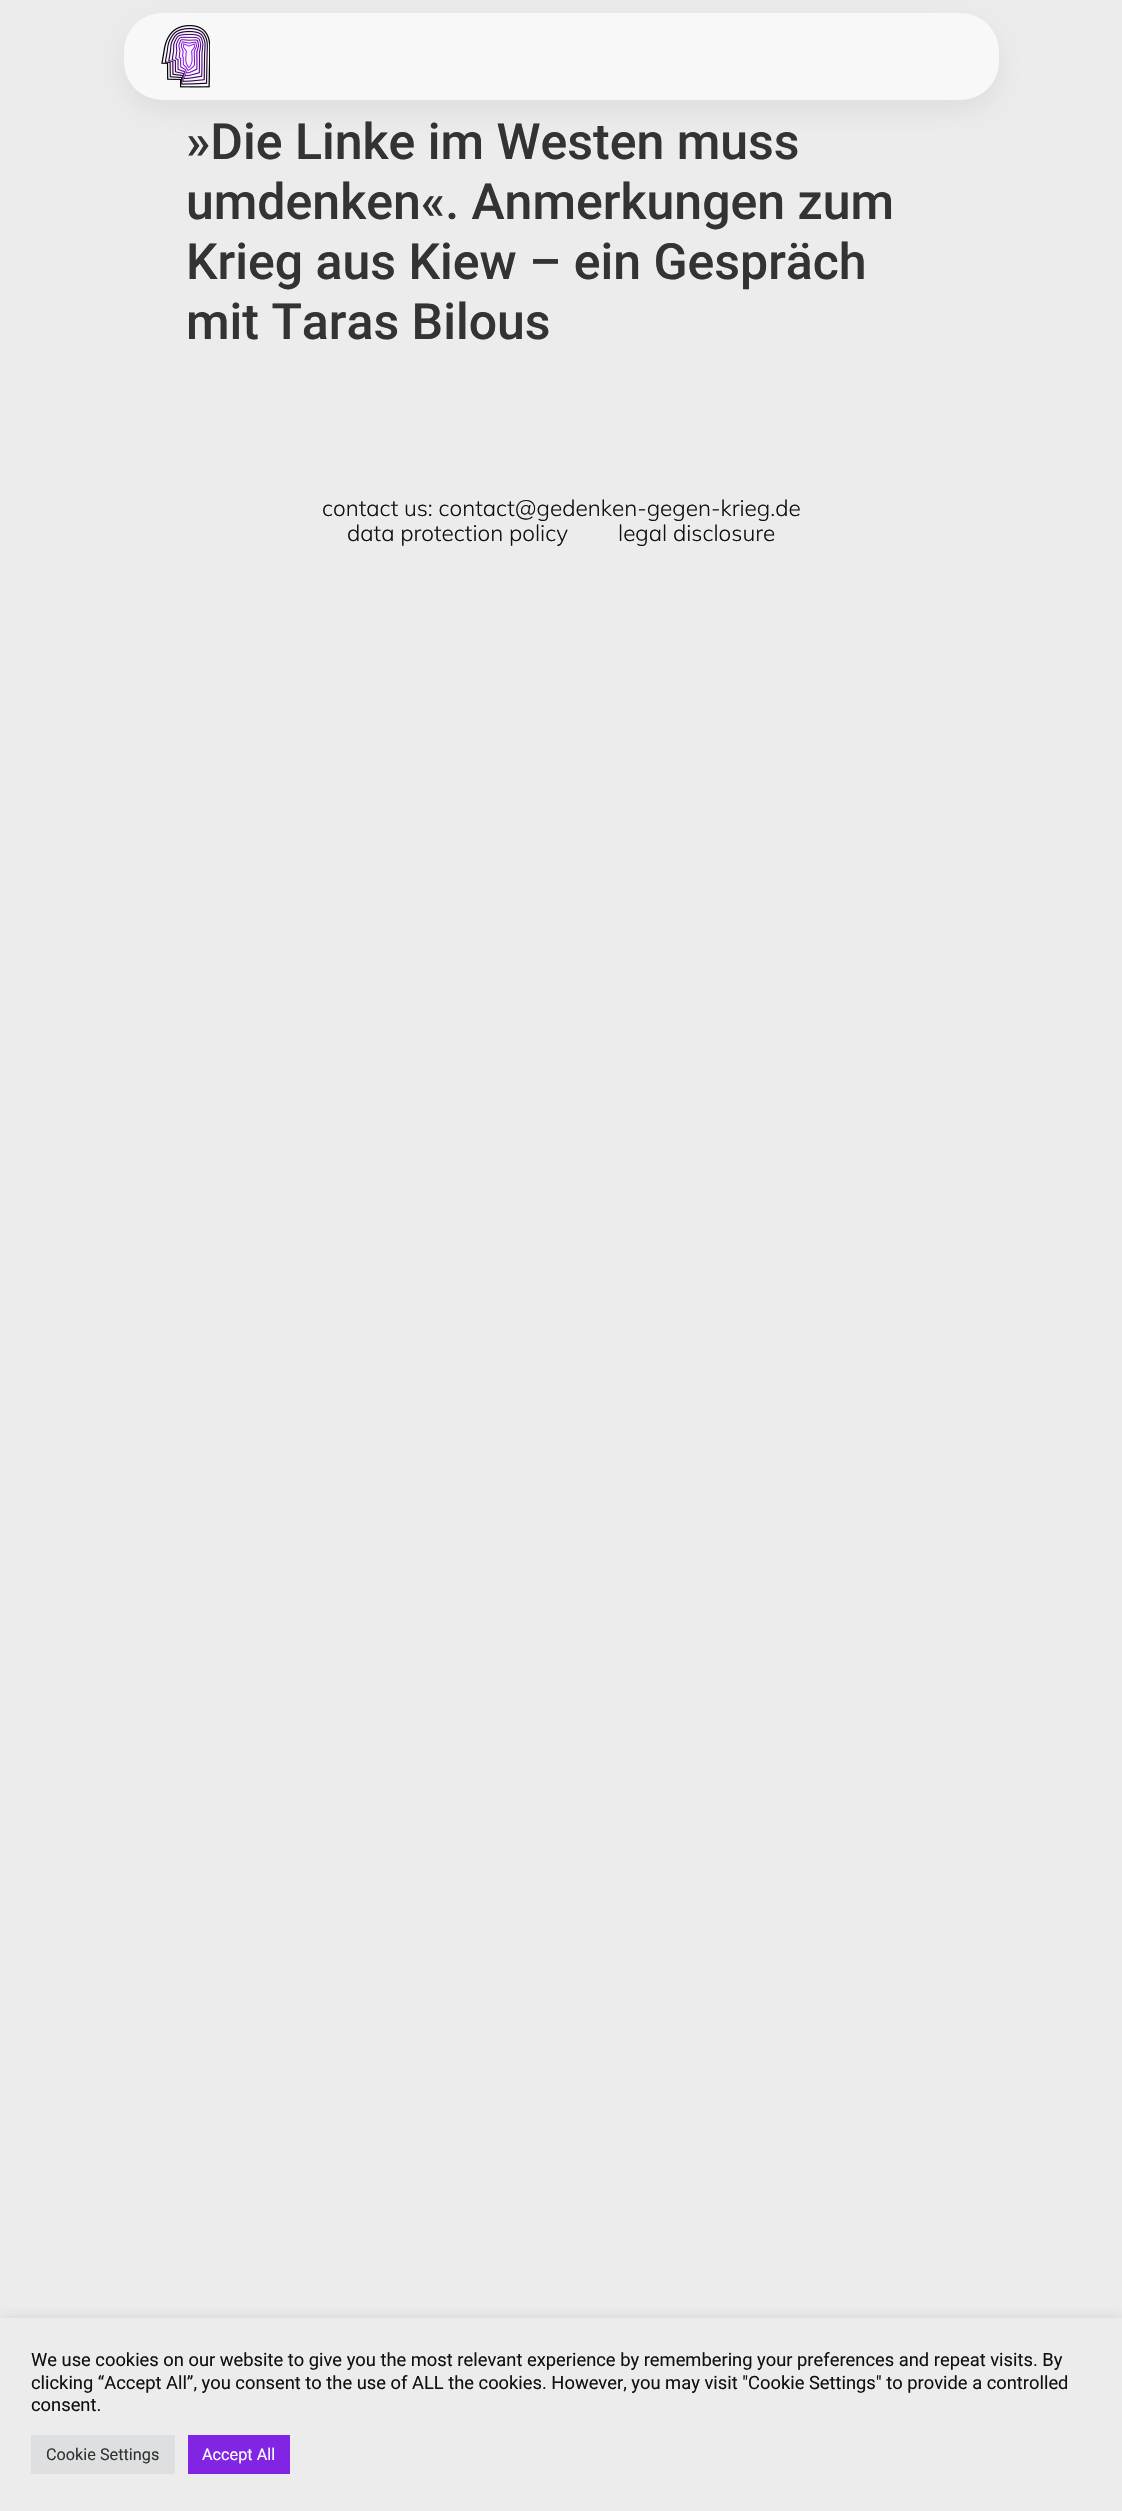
void draw(SkCanvas* c) {
SkPaint p;
p.setAntiAlias(true);
auto F=[&](const char* family, int weight, float size, bool italic = false){SkFontStyle style(weight, SkFontStyle::kNormal_Width,italic ? SkFontStyle::kItalic_Slant : SkFontStyle::kUpright_Slant);SkFont result(fontMgr->matchFamilyStyle(family, style), size);result.setSubpixel(true);return result;};
auto T=[&](const char* s, float x, float y, const SkFont& font){c->drawString(s, x, y, font, p);};
auto R=[&](float x, float y, float w, float h){c->drawRect(SkRect::MakeXYWH(x, y, w, h), p);};
auto Q=[&](float x, float y, float w, float h, float radius){c->drawRoundRect(SkRect::MakeXYWH(x, y, w, h), radius, radius, p);};
auto I=[&](const char* path, float x, float y, float w, float h){auto image = SkImages::DeferredFromEncodedData(SkData::MakeFromFileName(path));c->drawImageRect(image, SkRect::MakeXYWH(x, y, w, h), SkSamplingOptions());};
c->clear(0xffececec);
p.setColor(0x33959da5);
p.setMaskFilter(SkMaskFilter::MakeBlur(kNormal_SkBlurStyle, 15));
c->drawRoundRect(SkRect::MakeXYWH(124,23,875,87),38,38,p);
p.setMaskFilter(nullptr);
p.setColor(0xfff8f8f8);
Q(124,13,875,87,38);
I("1.png",161,25,49,63);
auto f1 = F("Roboto",500,50);
p.setColor(0xff333333);
T("»Die Linke im Westen muss",186,159,f1);
T("umdenken«. Anmerkungen zum",186,219,f1);
T("Krieg aus Kiew – ein Gespräch",186,279,f1);
T("mit Taras Bilous",186,339,f1);
auto f2 = F("Mulish",300,22.5);
p.setColor(0xff111111);
T("contact us: contact@gedenken-gegen-krieg.de",322,516,f2);
T("data protection policy",347,541,f2);
T("legal disclosure",618,541,f2);
c->save();
c->clipRect(SkRect::MakeXYWH(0,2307,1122,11));
p.setColor(0x4dacabab);
p.setMaskFilter(SkMaskFilter::MakeBlur(kNormal_SkBlurStyle, 6));
c->drawRect(SkRect::MakeXYWH(0,2316,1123,194),p);
p.setMaskFilter(nullptr);
c->restore();
auto f3 = F("Roboto",400,18.33);
p.setColor(0xff111111);
T("We use cookies on our website to give you the most relevant experience by remembering your preferences and repeat visits. By",31,2366,f3);
T("clicking “Accept All”, you consent to the use of ALL the cookies. However, you may visit \"Cookie Settings\" to provide a controlled",31,2389,f3);
T("consent.",31,2411,f3);
p.setColor(0xffdedfe0);
R(31,2435,144,39);
auto f4 = F("Roboto",400,16.25);
p.setColor(0xff333333);
T("Cookie Settings",46,2460,f4);
p.setColor(0xff8224e3);
R(188,2435,102,39);
p.setColor(0xffffffff);
T("Accept All",202,2460,f4);
}
